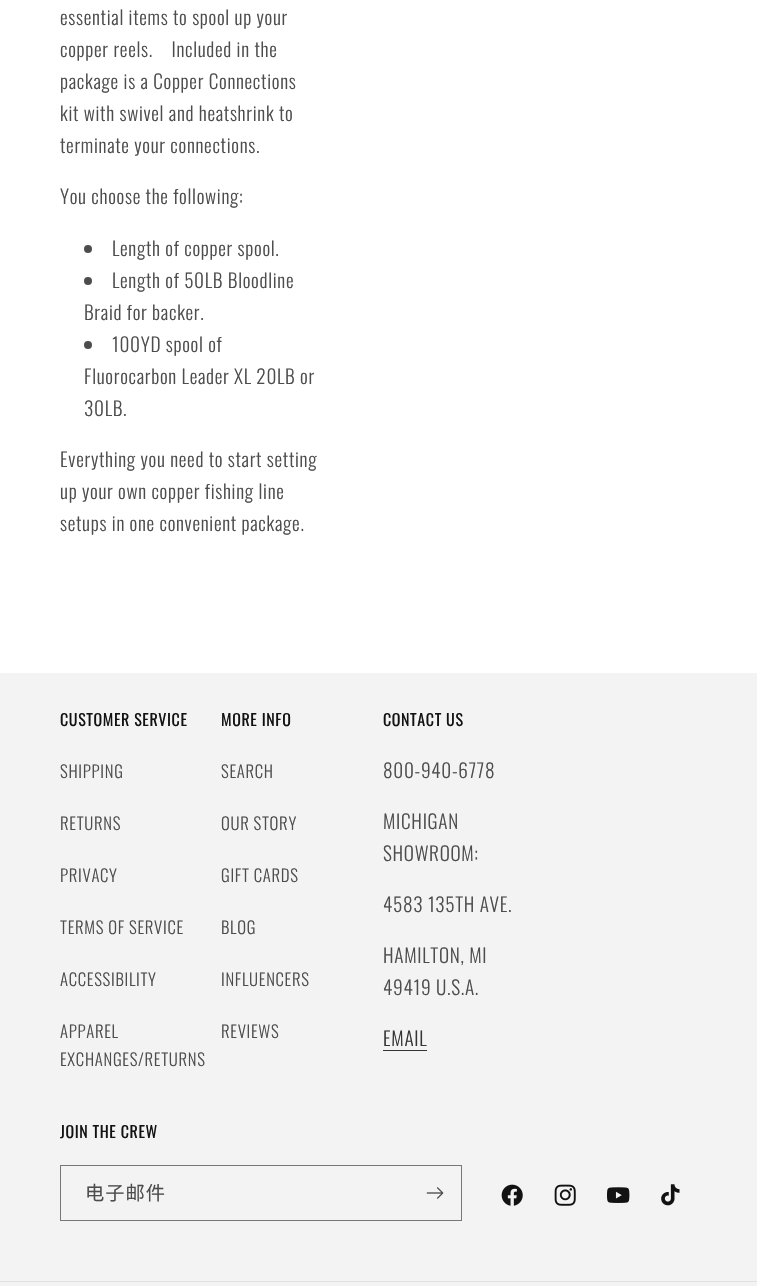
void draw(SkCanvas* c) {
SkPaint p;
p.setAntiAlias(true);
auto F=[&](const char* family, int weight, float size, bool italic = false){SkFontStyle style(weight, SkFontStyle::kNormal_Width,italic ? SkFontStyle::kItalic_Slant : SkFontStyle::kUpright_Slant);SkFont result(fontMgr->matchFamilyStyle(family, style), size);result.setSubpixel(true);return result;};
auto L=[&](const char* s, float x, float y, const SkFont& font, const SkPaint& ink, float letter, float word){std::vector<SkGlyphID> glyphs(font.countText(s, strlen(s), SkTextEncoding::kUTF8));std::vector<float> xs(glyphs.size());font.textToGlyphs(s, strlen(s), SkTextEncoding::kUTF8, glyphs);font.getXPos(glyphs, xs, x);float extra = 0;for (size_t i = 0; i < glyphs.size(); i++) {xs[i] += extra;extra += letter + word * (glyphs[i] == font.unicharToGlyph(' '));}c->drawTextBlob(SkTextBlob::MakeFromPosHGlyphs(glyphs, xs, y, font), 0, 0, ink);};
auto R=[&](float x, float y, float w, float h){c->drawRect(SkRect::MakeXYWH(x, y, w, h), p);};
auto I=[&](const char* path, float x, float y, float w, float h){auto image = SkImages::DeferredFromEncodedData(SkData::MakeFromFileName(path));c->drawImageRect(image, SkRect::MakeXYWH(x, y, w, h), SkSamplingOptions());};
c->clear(0xffffffff);
auto f1 = F("Oswald",300,19.25);
p.setColor(0xff4d4d4d);
L("essential items to spool up your",60,25,f1,p,.7,0);
L("copper reels.    Included in the",60,57,f1,p,.7,0);
L("package is a Copper Connections",60,89,f1,p,.7,0);
L("kit with swivel and heatshrink to",60,121,f1,p,.7,0);
L("terminate your connections.",60,153,f1,p,.7,0);
L("You choose the following:",60,204,f1,p,.7,0);
c->drawCircle(88,249,4,p);
L("Length of copper spool.",112,256,f1,p,.7,0);
c->drawCircle(88,281,4,p);
L("Length of 50LB Bloodline",112,288,f1,p,.7,0);
L("Braid for backer.",84,320,f1,p,.7,0);
c->drawCircle(88,345,4,p);
L("100YD spool of",112,352,f1,p,.7,0);
L("Fluorocarbon Leader XL 20LB or",84,384,f1,p,.7,0);
L("30LB.",84,416,f1,p,.7,0);
L("Everything you need to start setting",60,467,f1,p,.7,0);
L("up your own copper fishing line",60,499,f1,p,.7,0);
L("setups in one convenient package.",60,531,f1,p,.7,0);
p.setColor(0xfff3f3f3);
R(0,673,757,613);
auto f2 = F("Oswald",400,16);
p.setColor(0xff121212);
L("CUSTOMER SERVICE",60,726,f2,p,.6,0);
auto f3 = F("Oswald",300,16.75);
p.setColor(0xff4d4d4d);
L("SHIPPING",60,778,f3,p,.7,0);
L("RETURNS",60,830,f3,p,.7,0);
L("PRIVACY",60,882,f3,p,.7,0);
L("TERMS OF SERVICE",60,934,f3,p,.7,0);
L("ACCESSIBILITY",60,986,f3,p,.7,0);
L("APPAREL",60,1038,f3,p,.7,0);
L("EXCHANGES/RETURNS",60,1066,f3,p,.7,0);
p.setColor(0xff121212);
L("MORE INFO",221,726,f2,p,.6,0);
p.setColor(0xff4d4d4d);
L("SEARCH",221,778,f3,p,.7,0);
L("OUR STORY",221,830,f3,p,.7,0);
L("GIFT CARDS",221,882,f3,p,.7,0);
L("BLOG",221,934,f3,p,.7,0);
L("INFLUENCERS",221,986,f3,p,.7,0);
L("REVIEWS",221,1038,f3,p,.7,0);
p.setColor(0xff121212);
L("CONTACT US",383,726,f2,p,.6,0);
p.setColor(0xff4d4d4d);
L("800-940-6778",383,778,f1,p,.7,0);
L("MICHIGAN",383,829,f1,p,.7,0);
L("SHOWROOM:",383,861,f1,p,.7,0);
L("4583 135TH AVE.",383,912,f1,p,.7,0);
L("HAMILTON, MI",383,963,f1,p,.7,0);
L("49419 U.S.A.",383,995,f1,p,.7,0);
p.setColor(0xff343434);
L("EMAIL",383,1046,f1,p,.7,0);
R(383,1050,44,1);
p.setColor(0xff121212);
L("JOIN THE CREW",60,1138,f2,p,.6,0);
p.setStroke(true);
p.setStrokeWidth(1);
p.setColor(0xff777777);
c->drawRect(SkRect::MakeXYWH(60.5,1165.5,401,55),p);
auto f4 = F("Noto Sans CJK SC",400,19.25);
p.setStroke(false);
p.setColor(0xff4d4d4d);
L("电子邮件",85,1200,f4,p,1,0);
I("1.png",426,1187,18,12);
I("2.png",501,1184,22,22);
I("3.png",554,1184,22,22);
I("4.png",607,1187,23,16);
I("5.png",661,1184,19,22);
p.setColor(0xffe1e1e1);
R(0,1281,757,1);
}
